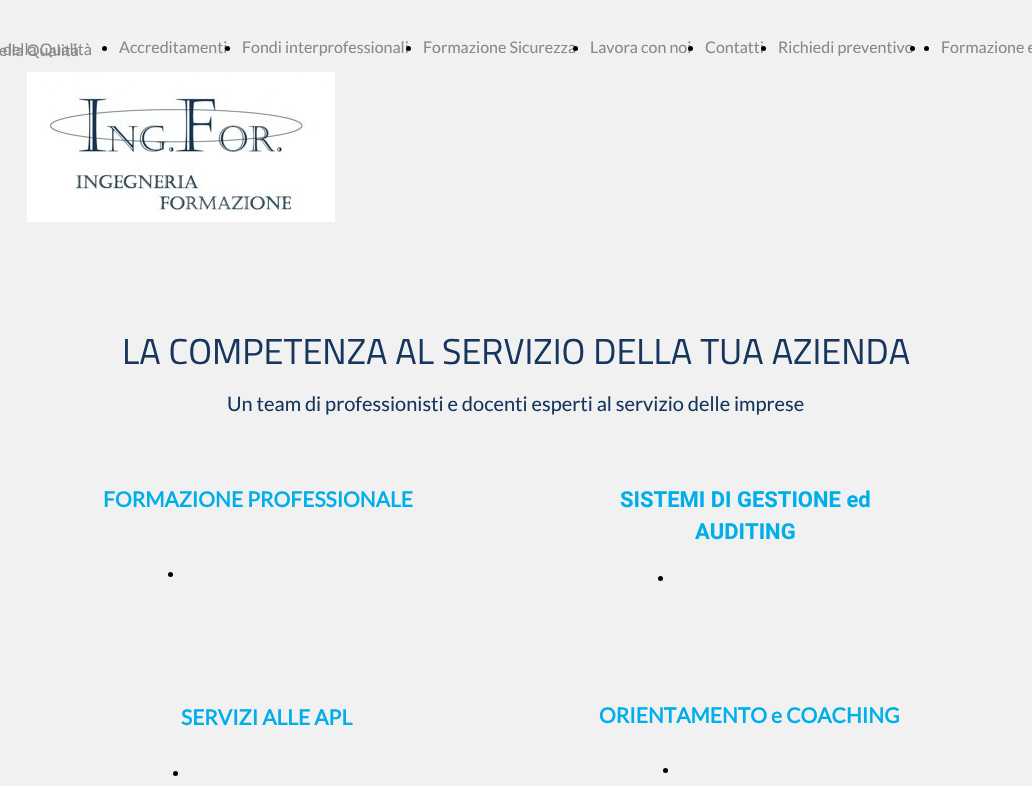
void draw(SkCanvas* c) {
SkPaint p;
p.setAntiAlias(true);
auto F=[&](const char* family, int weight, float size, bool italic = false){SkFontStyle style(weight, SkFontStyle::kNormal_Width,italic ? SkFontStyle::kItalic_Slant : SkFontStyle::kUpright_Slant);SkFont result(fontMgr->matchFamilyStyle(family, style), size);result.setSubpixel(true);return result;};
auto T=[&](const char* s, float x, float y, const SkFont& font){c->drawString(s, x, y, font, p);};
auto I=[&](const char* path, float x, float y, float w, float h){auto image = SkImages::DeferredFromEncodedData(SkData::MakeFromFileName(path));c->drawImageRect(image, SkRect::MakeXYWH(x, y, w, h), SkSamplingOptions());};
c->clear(0xfff1f1f1);
auto f1 = F("Lato",400,16);
p.setColor(0xff878a8d);
T("della Qualità",3,55,f1);
T("ella Qualità",-1,56,f1);
p.setColor(0xff000000);
c->drawCircle(104.5,48.5,2.5,p);
p.setColor(0xff878a8d);
T("Accreditamenti",119,53,f1);
p.setColor(0xff000000);
c->drawCircle(227.5,48.5,2.5,p);
p.setColor(0xff878a8d);
T("Fondi interprofessionali",242,53,f1);
p.setColor(0xff000000);
c->drawCircle(408.5,48.5,2.5,p);
p.setColor(0xff878a8d);
T("Formazione Sicurezza",423,53,f1);
p.setColor(0xff000000);
c->drawCircle(575.5,48.5,2.5,p);
p.setColor(0xff878a8d);
T("Lavora con noi",590,53,f1);
p.setColor(0xff000000);
c->drawCircle(690.5,48.5,2.5,p);
p.setColor(0xff878a8d);
T("Contatti",705,53,f1);
p.setColor(0xff000000);
c->drawCircle(763.5,48.5,2.5,p);
p.setColor(0xff878a8d);
T("Richiedi preventivo",778,53,f1);
p.setColor(0xff000000);
c->drawCircle(926.5,48.5,2.5,p);
p.setColor(0xff878a8d);
T("Formazione e",941,53,f1);
p.setColor(0xff000000);
c->drawCircle(912.5,48.5,2.5,p);
I("1.png",27,72,308,150);
auto f2 = F("Titillium Web",400,36);
p.setColor(0xff17365d);
T("LA COMPETENZA AL SERVIZIO DELLA TUA AZIENDA",122,364,f2);
auto f3 = F("Lato",400,20);
T("Un team di professionisti e docenti esperti al servizio delle imprese",227,411,f3);
auto f4 = F("Lato",700,21);
p.setColor(0xff00afea);
T("FORMAZIONE PROFESSIONALE",103,507,f4);
auto f5 = F("Heebo",700,22);
T("SISTEMI DI GESTIONE ed",620,507,f5);
T("AUDITING",695,539,f5);
p.setColor(0xff000000);
c->drawCircle(170.5,574.5,2.5,p);
c->drawCircle(660.5,578.5,2.5,p);
p.setColor(0xff00afea);
T("SERVIZI ALLE APL",181,725,f4);
T("ORIENTAMENTO e COACHING",599,723,f4);
p.setColor(0xff000000);
c->drawCircle(665.5,770.5,2.5,p);
c->drawCircle(175.5,773.5,2.5,p);
}
